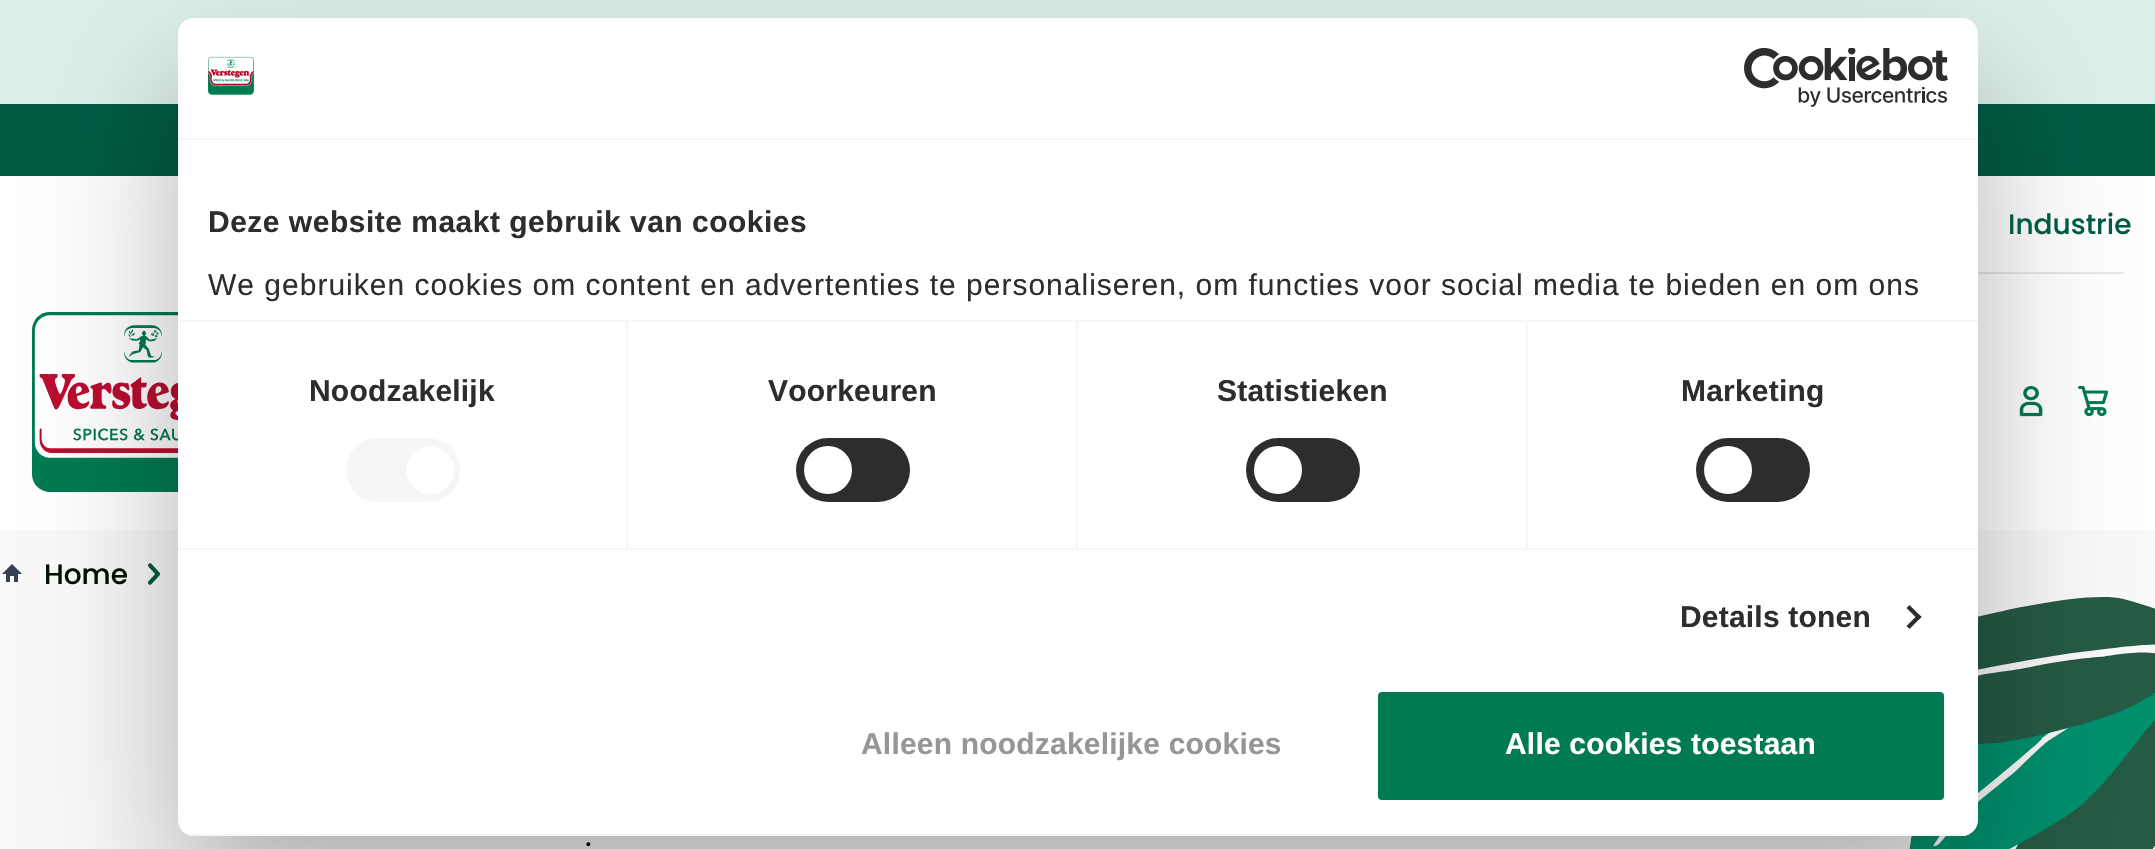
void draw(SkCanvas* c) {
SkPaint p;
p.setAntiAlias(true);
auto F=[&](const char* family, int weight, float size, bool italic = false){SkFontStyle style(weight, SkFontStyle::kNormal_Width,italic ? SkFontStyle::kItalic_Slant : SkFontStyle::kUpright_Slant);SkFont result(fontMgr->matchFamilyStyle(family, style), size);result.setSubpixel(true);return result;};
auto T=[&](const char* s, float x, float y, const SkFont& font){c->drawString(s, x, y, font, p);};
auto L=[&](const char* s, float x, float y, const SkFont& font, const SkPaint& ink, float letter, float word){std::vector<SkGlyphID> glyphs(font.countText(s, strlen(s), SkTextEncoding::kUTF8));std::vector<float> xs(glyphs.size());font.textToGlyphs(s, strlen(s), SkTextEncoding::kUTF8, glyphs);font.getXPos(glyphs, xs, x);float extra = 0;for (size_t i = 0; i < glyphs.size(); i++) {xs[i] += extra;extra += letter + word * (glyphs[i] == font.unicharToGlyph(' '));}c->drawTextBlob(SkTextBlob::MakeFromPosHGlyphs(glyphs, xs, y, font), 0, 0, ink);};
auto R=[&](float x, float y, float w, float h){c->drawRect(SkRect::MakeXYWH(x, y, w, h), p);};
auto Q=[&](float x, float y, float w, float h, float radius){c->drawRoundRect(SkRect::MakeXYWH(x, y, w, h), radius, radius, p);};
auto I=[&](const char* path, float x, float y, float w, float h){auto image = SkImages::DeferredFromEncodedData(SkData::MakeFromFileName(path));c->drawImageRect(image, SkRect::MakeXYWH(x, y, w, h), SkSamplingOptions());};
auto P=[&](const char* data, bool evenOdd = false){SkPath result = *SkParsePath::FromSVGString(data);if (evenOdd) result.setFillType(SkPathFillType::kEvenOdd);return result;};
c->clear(0xffffffff);
p.setColor(0xffdeefe9);
R(0,0,2155,104);
p.setColor(0xff005b43);
R(0,104,2155,72);
I("3.png",32,312,146,180);
p.setColor(0xffe5e7eb);
R(1978,272,146,2);
I("4.png",2019,386,24,31);
I("5.png",2078,386,30,31);
p.setColor(0xfff9f9f9);
R(0,530,2155,319);
I("6.png",2,564,20,18);
I("7.png",148,563,12,22);
I("8.png",1909,597,246,252);
p.setColor(0x4d000000);
p.setMaskFilter(SkMaskFilter::MakeBlur(kNormal_SkBlurStyle, 68));
c->drawRoundRect(SkRect::MakeXYWH(178,82,1800,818),16,16,p);
p.setMaskFilter(nullptr);
p.setColor(0xffffffff);
Q(178,18,1800,818,16);
p.setColor(0xfff6f6f6);
R(178,138,1800,2);
I("1.png",208,56,46,39);
I("2.png",1744,48,204,59);
R(178,320,1800,2);
auto f1 = F("Liberation Sans",700,30);
p.setColor(0xff2d2d2d);
L("Deze website maakt gebruik van cookies",208,232,f1,p,.5,0);
auto f2 = F("Liberation Sans",400,30);
L("We gebruiken cookies om content en advertenties te personaliseren, om functies voor social media te bieden en om ons",208,295,f2,p,1,0);
p.setColor(0xfff6f6f6);
R(178,548,1800,2);
R(626,322,2,226);
p.setColor(0xff2d2d2d);
L("Noodzakelijk",309,401,f1,p,.2,0);
p.setColor(0xfff6f6f6);
Q(346,438,114,64,32);
p.setColor(0xffffffff);
c->drawCircle(430,470,24,p);
p.setColor(0xfff6f6f6);
R(1076,322,2,226);
p.setColor(0xff2d2d2d);
L("Voorkeuren",768,401,f1,p,.2,0);
Q(796,438,114,64,32);
p.setColor(0xffffffff);
c->drawCircle(828,470,24,p);
p.setColor(0xfff6f6f6);
R(1526,322,2,226);
p.setColor(0xff2d2d2d);
L("Statistieken",1217,401,f1,p,.2,0);
Q(1246,438,114,64,32);
p.setColor(0xffffffff);
c->drawCircle(1278,470,24,p);
p.setColor(0xff2d2d2d);
L("Marketing",1681,401,f1,p,.2,0);
Q(1696,438,114,64,32);
p.setColor(0xffffffff);
c->drawCircle(1728,470,24,p);
p.setColor(0xff2d2d2d);
L("Details tonen",1680,627,f1,p,.2,0);
c->drawPath(P("M1909.5 605l12 12l-3 3l-12-12z"),p);
c->drawPath(P("M1918.5 614l3 3l-12 12l-3-3z"),p);
c->save();
c->clipPath(P("M194 18h1768c9 0 16 7 16 16v786c0 9-7 16-16 16h-1768c-9 0-16-7-16-16v-786c0-9 7-16 16-16z"),true);
p.setColor(0xfff6f6f6);
R(178,834,1800,2);
c->restore();
p.setColor(0xff969696);
L("Alleen noodzakelijke cookies",861,754,f1,p,.2,0);
p.setColor(0xff007a53);
c->drawRoundRect(SkRect::MakeXYWH(1376,690,570,112),6,6,p);
p.setStroke(true);
p.setStrokeWidth(4);
p.setColor(0xffffffff);
c->drawRoundRect(SkRect::MakeXYWH(1376,690,570,112),6,6,p);
p.setStroke(false);
L("Alle cookies toestaan",1505,754,f1,p,.2,0);
auto f3 = F("Poppins",500,28);
p.setColor(0xff005b43);
T("Industrie",2008,234,f3);
p.setColor(0xff001100);
T("Home",44,584,f3);
auto f4 = F("Poppins",400,32);
T(".",585,846,f4);
}
